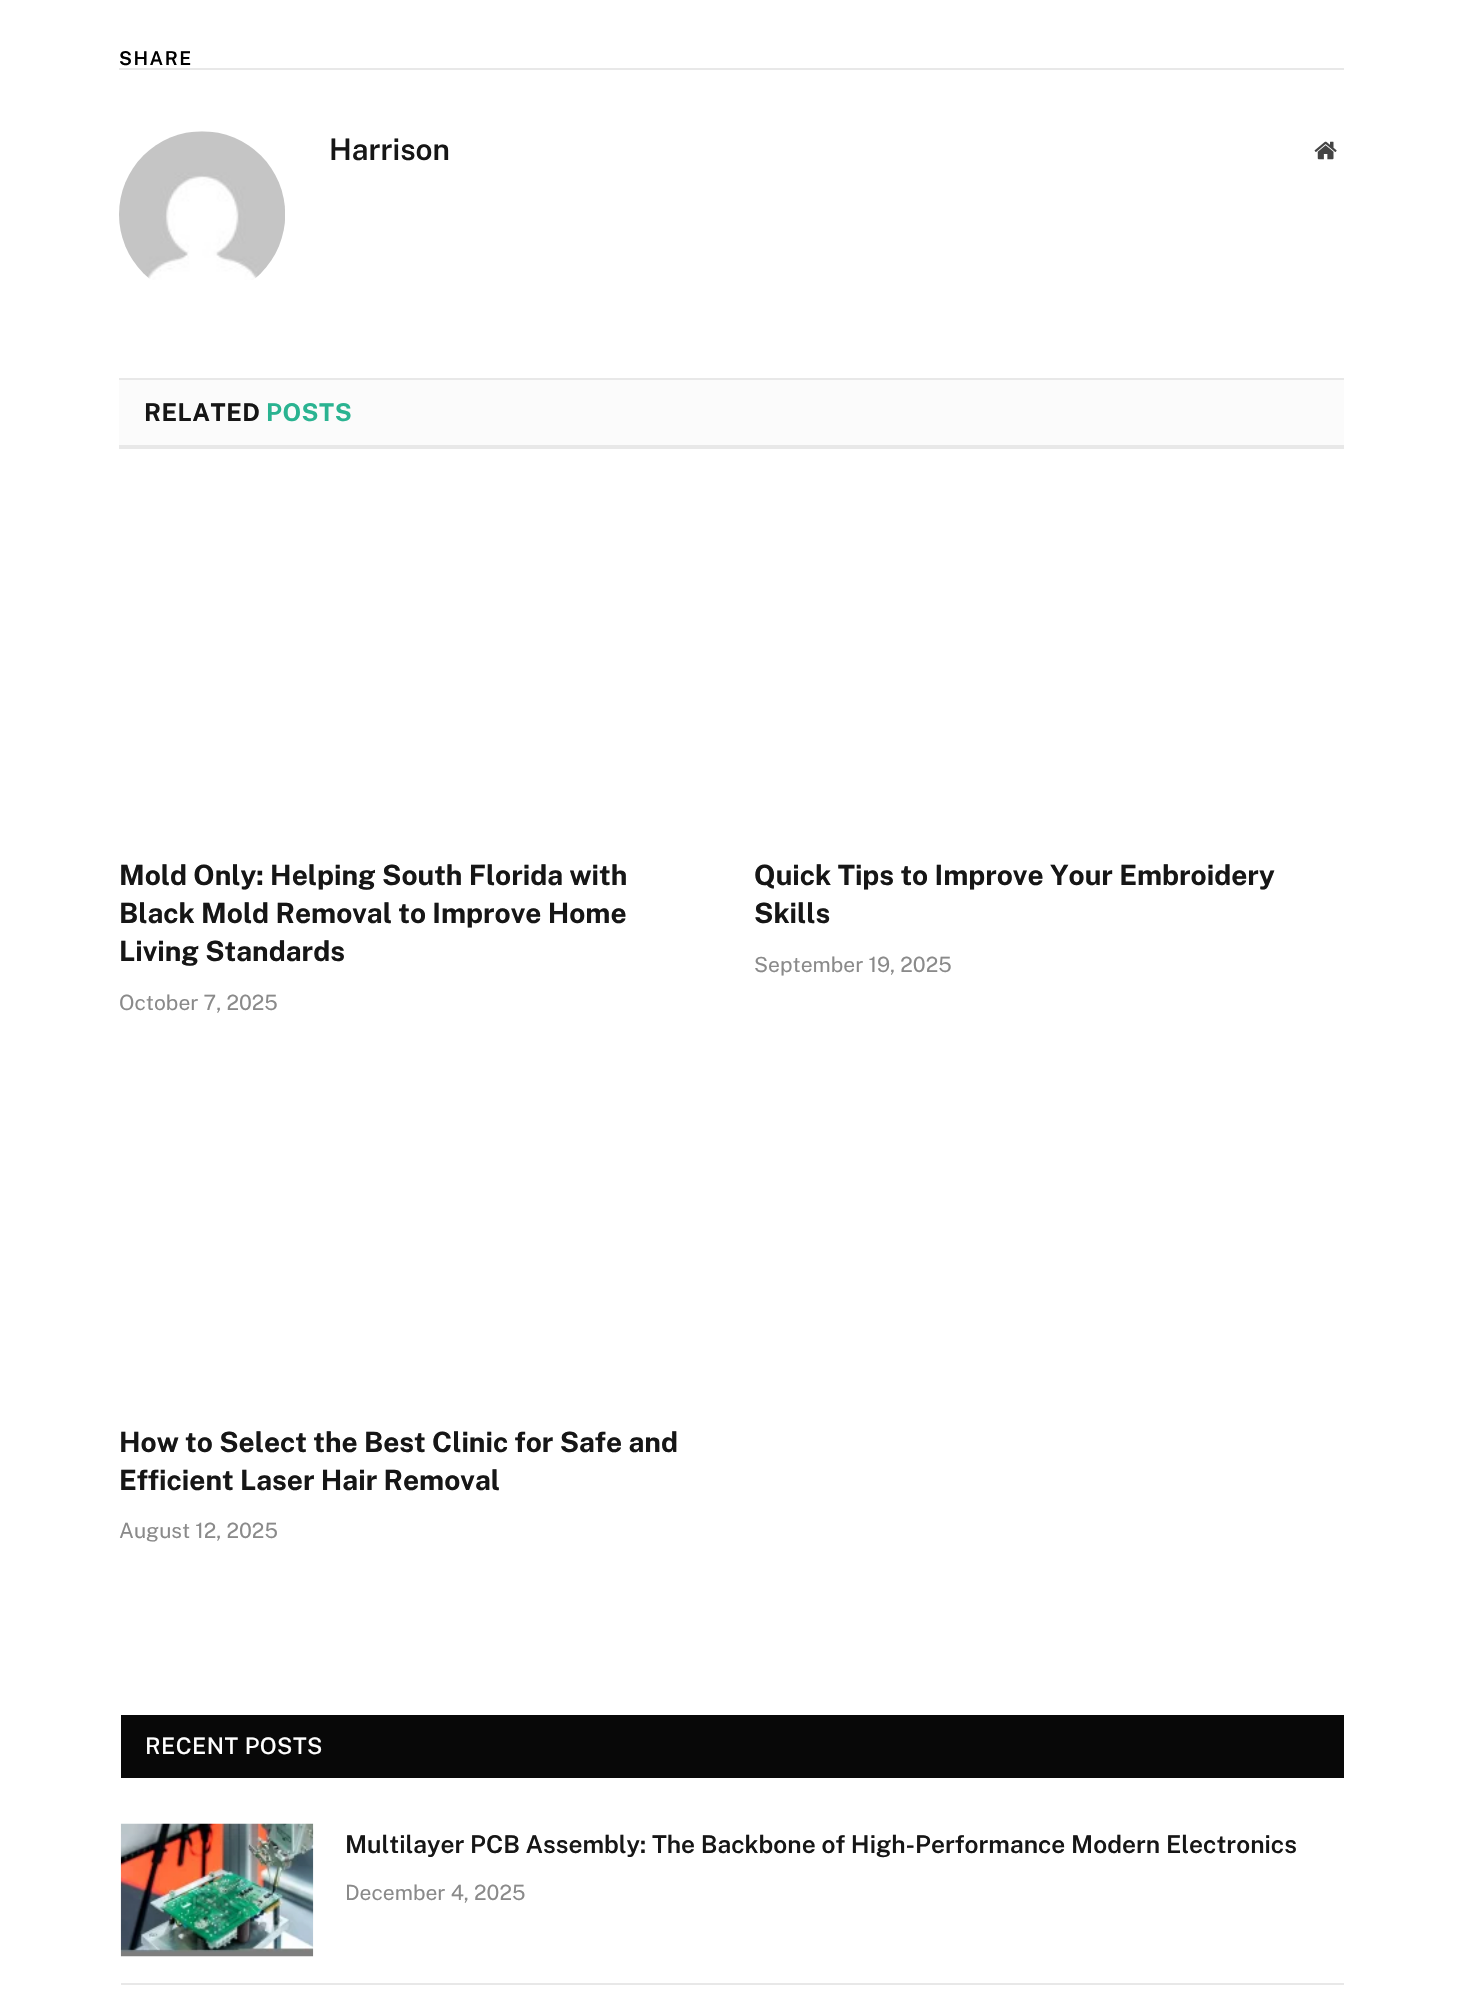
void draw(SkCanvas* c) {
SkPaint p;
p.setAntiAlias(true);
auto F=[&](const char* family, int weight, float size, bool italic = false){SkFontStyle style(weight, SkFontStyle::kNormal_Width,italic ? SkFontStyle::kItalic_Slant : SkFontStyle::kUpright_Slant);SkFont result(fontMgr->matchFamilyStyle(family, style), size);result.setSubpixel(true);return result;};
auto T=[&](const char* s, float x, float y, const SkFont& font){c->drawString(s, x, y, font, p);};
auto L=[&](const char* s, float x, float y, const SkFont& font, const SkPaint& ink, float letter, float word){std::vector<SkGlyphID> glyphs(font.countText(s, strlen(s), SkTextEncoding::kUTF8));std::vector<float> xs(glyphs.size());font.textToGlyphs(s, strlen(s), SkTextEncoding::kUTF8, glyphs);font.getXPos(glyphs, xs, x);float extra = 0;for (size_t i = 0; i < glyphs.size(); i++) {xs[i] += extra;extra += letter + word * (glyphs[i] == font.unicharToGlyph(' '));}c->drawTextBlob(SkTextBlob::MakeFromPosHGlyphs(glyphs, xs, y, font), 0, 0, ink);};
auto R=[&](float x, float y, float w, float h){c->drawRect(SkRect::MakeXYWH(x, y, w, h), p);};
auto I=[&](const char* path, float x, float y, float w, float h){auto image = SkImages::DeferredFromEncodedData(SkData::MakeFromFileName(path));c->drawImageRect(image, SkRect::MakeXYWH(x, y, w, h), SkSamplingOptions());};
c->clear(0xffffffff);
auto f1 = F("Public Sans",600,19);
p.setColor(0xff000000);
L("SHARE",119,65,f1,p,1.5,0);
p.setColor(0xffe8e8e8);
R(119,68,1225,2);
I("1.png",119,131,166,149);
auto f2 = F("Public Sans",600,29.75);
p.setColor(0xff161616);
T("Harrison",329,160,f2);
I("2.png",1314,141,23,19);
p.setColor(0xfffbfbfb);
R(119,380,1225,65);
p.setColor(0xffe8e8e8);
R(119,378,1225,2);
R(119,445,1225,4);
auto f3 = F("Public Sans",700,24.5);
p.setColor(0xff161616);
L("RELATED",144,421,f3,p,.5,0);
p.setColor(0xff2ab391);
L("POSTS",266,421,f3,p,.5,0);
auto f4 = F("Public Sans",700,28);
p.setColor(0xff161616);
T("Mold Only: Helping South Florida with",119,885,f4);
T("Black Mold Removal to Improve Home",119,923,f4);
T("Living Standards",119,961,f4);
auto f5 = F("Public Sans",400,21);
p.setColor(0xff8a8a8a);
T("October 7, 2025",119,1010,f5);
p.setColor(0xff161616);
T("Quick Tips to Improve Your Embroidery",754,885,f4);
T("Skills",754,923,f4);
p.setColor(0xff8a8a8a);
T("September 19, 2025",754,972,f5);
p.setColor(0xff161616);
T("How to Select the Best Clinic for Safe and",119,1452,f4);
T("Efficient Laser Hair Removal",119,1490,f4);
p.setColor(0xff8a8a8a);
T("August 12, 2025",119,1538,f5);
p.setColor(0xff080808);
R(121,1715,1223,63);
auto f6 = F("Public Sans",500,22.75);
p.setColor(0xffffffff);
L("RECENT POSTS",145,1754,f6,p,.5,0);
I("3.png",120,1823,194,134);
auto f7 = F("Public Sans",600,24.5);
p.setColor(0xff161616);
T("Multilayer PCB Assembly: The Backbone of High-Performance Modern Electronics",345,1853,f7);
p.setColor(0xff8a8a8a);
T("December 4, 2025",345,1900,f5);
p.setColor(0xffe8e8e8);
R(121,1983,1223,2);
}
